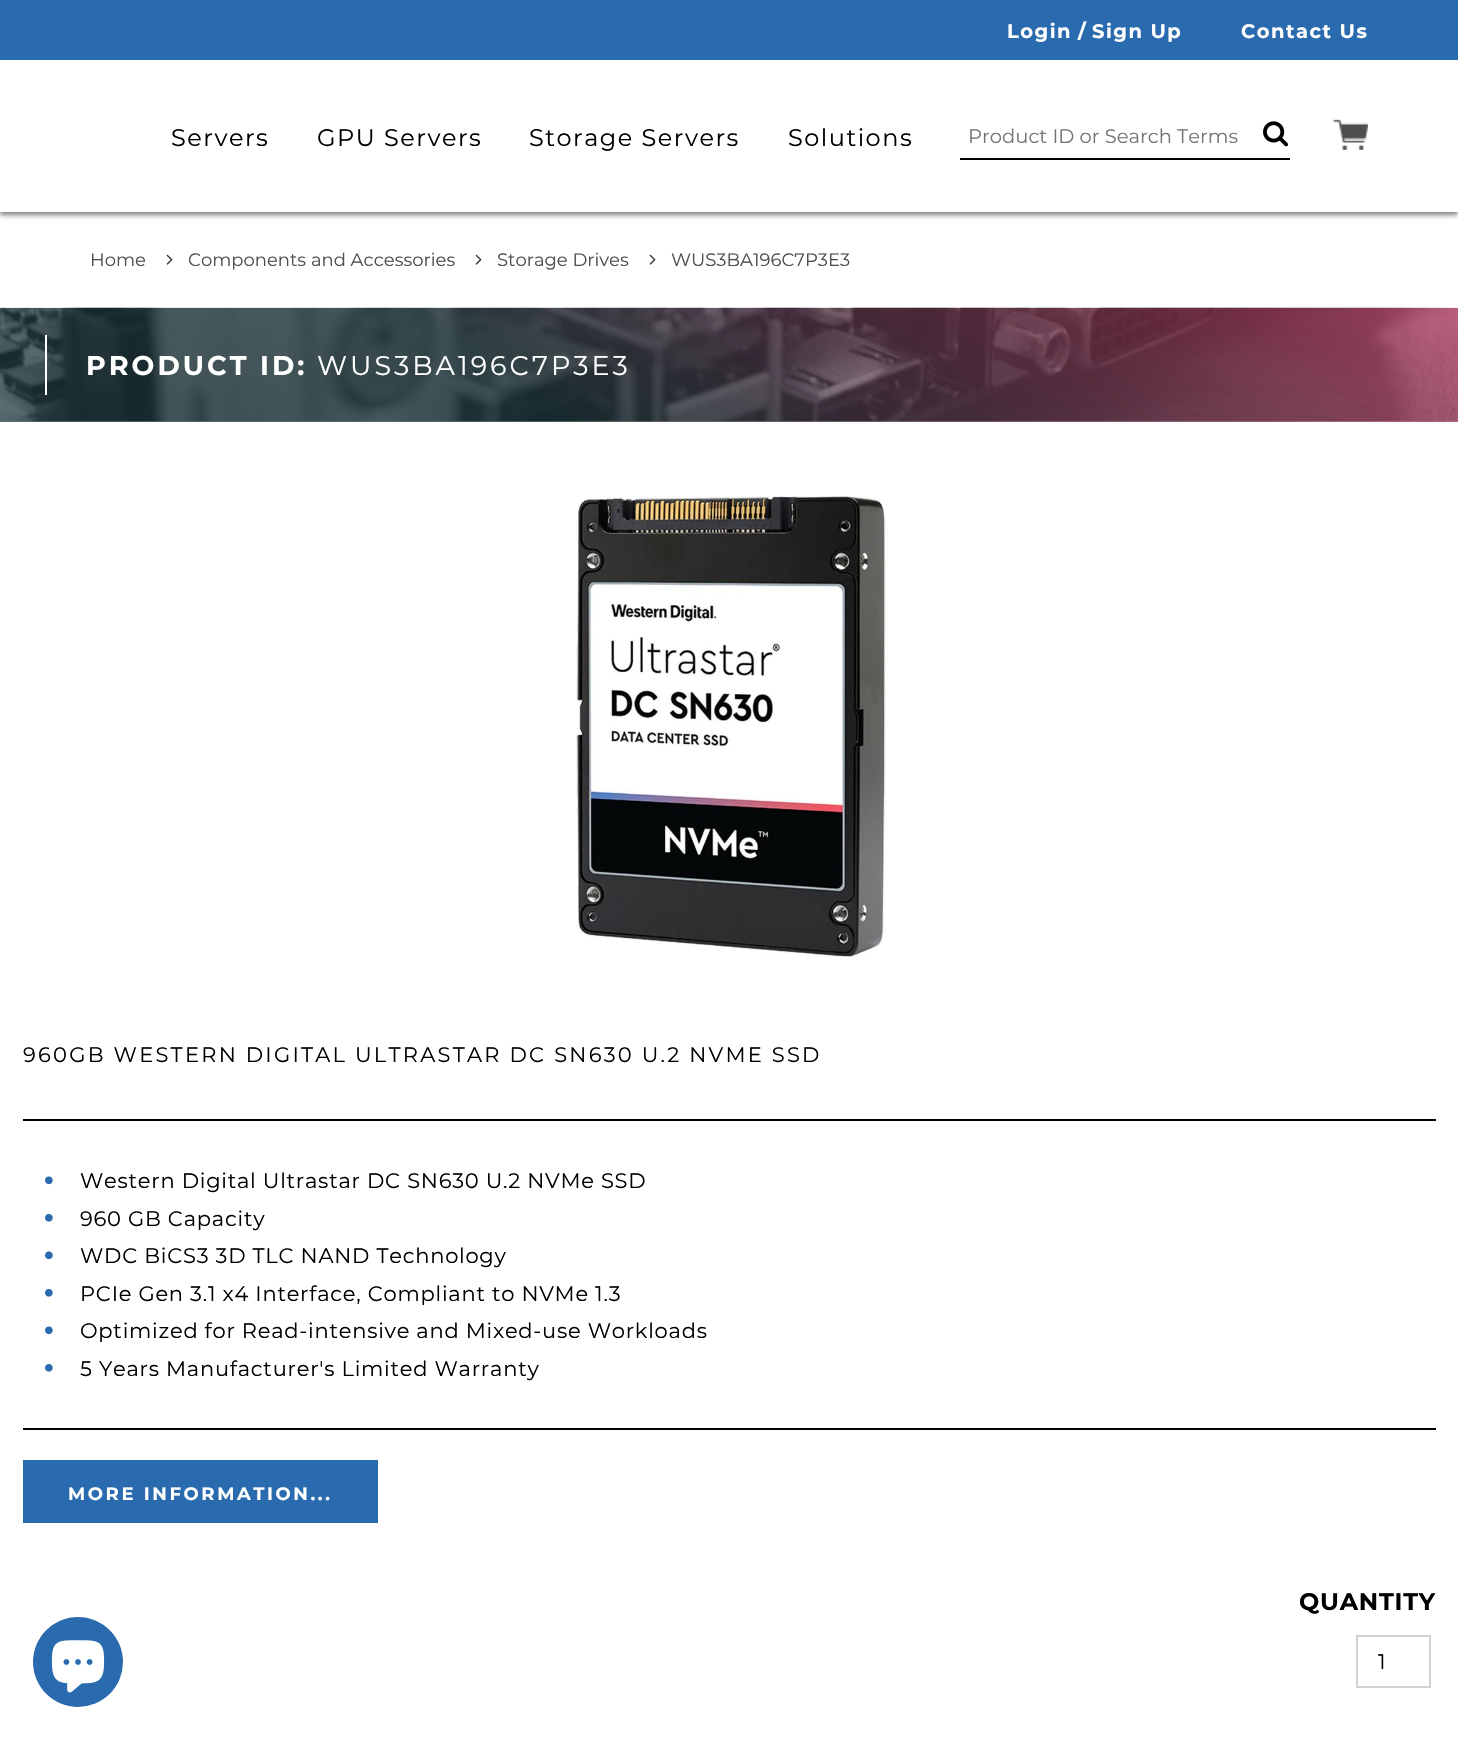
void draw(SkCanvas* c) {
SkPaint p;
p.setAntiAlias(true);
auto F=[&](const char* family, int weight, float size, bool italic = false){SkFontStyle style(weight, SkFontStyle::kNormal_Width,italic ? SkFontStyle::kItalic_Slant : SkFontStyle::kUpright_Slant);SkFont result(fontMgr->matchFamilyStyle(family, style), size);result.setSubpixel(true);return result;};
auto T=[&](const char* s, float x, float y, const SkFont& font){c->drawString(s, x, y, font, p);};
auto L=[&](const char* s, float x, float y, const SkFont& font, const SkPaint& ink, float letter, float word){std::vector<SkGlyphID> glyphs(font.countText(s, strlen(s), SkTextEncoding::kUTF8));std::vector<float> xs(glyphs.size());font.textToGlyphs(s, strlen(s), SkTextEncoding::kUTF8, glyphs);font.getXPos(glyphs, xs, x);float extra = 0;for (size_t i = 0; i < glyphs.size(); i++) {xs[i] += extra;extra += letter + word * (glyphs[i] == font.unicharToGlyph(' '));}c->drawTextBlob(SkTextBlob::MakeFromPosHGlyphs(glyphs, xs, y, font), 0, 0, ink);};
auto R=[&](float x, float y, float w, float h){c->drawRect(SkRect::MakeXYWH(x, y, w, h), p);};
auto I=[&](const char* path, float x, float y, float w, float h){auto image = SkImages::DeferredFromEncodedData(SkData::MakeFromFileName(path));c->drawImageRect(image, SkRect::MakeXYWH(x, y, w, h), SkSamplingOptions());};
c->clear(0xffffffff);
p.setColor(0x80000000);
p.setMaskFilter(SkMaskFilter::MakeBlur(kNormal_SkBlurStyle, 2.5));
c->drawRect(SkRect::MakeXYWH(0,3,1458,212),p);
p.setMaskFilter(nullptr);
p.setColor(0xffffffff);
R(0,60,1458,152);
p.setColor(0xff2a6baf);
R(0,0,1458,60);
auto f1 = F("Montserrat",700,19.5);
p.setColor(0xffffffff);
L("Login",1007,38,f1,p,1.5,0);
L("/",1078,38,f1,p,1.5,0);
L("Sign Up",1092,38,f1,p,1.5,0);
L("Contact Us",1241,38,f1,p,1.5,0);
auto f2 = F("Montserrat",400,24);
p.setColor(0xff000000);
L("Servers",171,146,f2,p,1.5,0);
L("GPU Servers",317,146,f2,p,1.5,0);
L("Storage Servers",529,146,f2,p,1.5,0);
L("Solutions",788,146,f2,p,1.5,0);
R(960,158,330,2);
auto f3 = F("Montserrat",400,19.5);
p.setColor(0xff757575);
T("Product ID or Search Terms",968,143,f3);
I("1.png",1263,121,26,26);
I("2.png",1333,119,35,31);
auto f4 = F("Montserrat",400,18);
p.setColor(0xff4e4e4e);
T("Home",90,266,f4);
I("3.png",166,254,7,11);
T("Components and Accessories",188,266,f4);
I("3.png",475,254,7,11);
T("Storage Drives",497,266,f4);
I("3.png",649,254,7,11);
T("WUS3BA196C7P3E3",671,266,f4);
I("4.png",0,307,1458,115);
{
const SkColor colors[] = {0xb3193338,0xb3b13159};
const float stops[] = {.35,1};
const SkPoint ends[] = {{462,745}, {996,-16}};
p.setShader(SkGradientShader::MakeLinear(ends, colors, stops, 2, SkTileMode::kClamp));
p.setAlpha(255);
}
R(0,308,1458,114);
p.setShader(nullptr);
p.setColor(0xffffffff);
R(45,335,2,60);
auto f5 = F("Montserrat",700,27);
L("PRODUCT ID:",86,375,f5,p,3,0);
auto f6 = F("Montserrat",400,27);
L("WUS3BA196C7P3E3",317,375,f6,p,3,0);
I("5.png",576,495,311,463);
auto f7 = F("Montserrat",400,21);
p.setColor(0xff000000);
L("960GB WESTERN DIGITAL ULTRASTAR DC SN630 U.2 NVME SSD",23,1062,f7,p,2.25,0);
R(23,1119,1413,2);
R(23,1428,1413,2);
I("6.png",45,1176,8,9);
L("Western Digital Ultrastar DC SN630 U.2 NVMe SSD",80,1188,f7,p,.75,0);
I("7.png",45,1213,8,9);
L("960 GB Capacity",80,1226,f7,p,.75,0);
I("6.png",45,1251,8,9);
L("WDC BiCS3 3D TLC NAND Technology",80,1263,f7,p,.75,0);
I("7.png",45,1288,8,9);
L("PCIe Gen 3.1 x4 Interface, Compliant to NVMe 1.3",80,1301,f7,p,.75,0);
I("6.png",45,1326,8,9);
L("Optimized for Read-intensive and Mixed-use Workloads",80,1338,f7,p,.75,0);
I("7.png",45,1363,8,9);
L("5 Years Manufacturer's Limited Warranty",80,1376,f7,p,.75,0);
p.setColor(0xff2a6baf);
R(23,1460,355,63);
auto f8 = F("Montserrat",700,18);
p.setColor(0xffffffff);
L("MORE INFORMATION...",68,1500,f8,p,2.6,0);
auto f9 = F("Montserrat",700,24);
p.setColor(0xff000000);
L("QUANTITY",1299,1610,f9,p,.75,0);
p.setStroke(true);
p.setStrokeWidth(2);
p.setColor(0xffd1d1d1);
c->drawRect(SkRect::MakeXYWH(1357,1636,73,51),p);
p.setStroke(false);
p.setColor(0xff000000);
T("1",1378,1669,f7);
p.setColor(0xff2a6baf);
c->drawCircle(78,1662,45,p);
I("8.png",51,1640,54,53);
}
